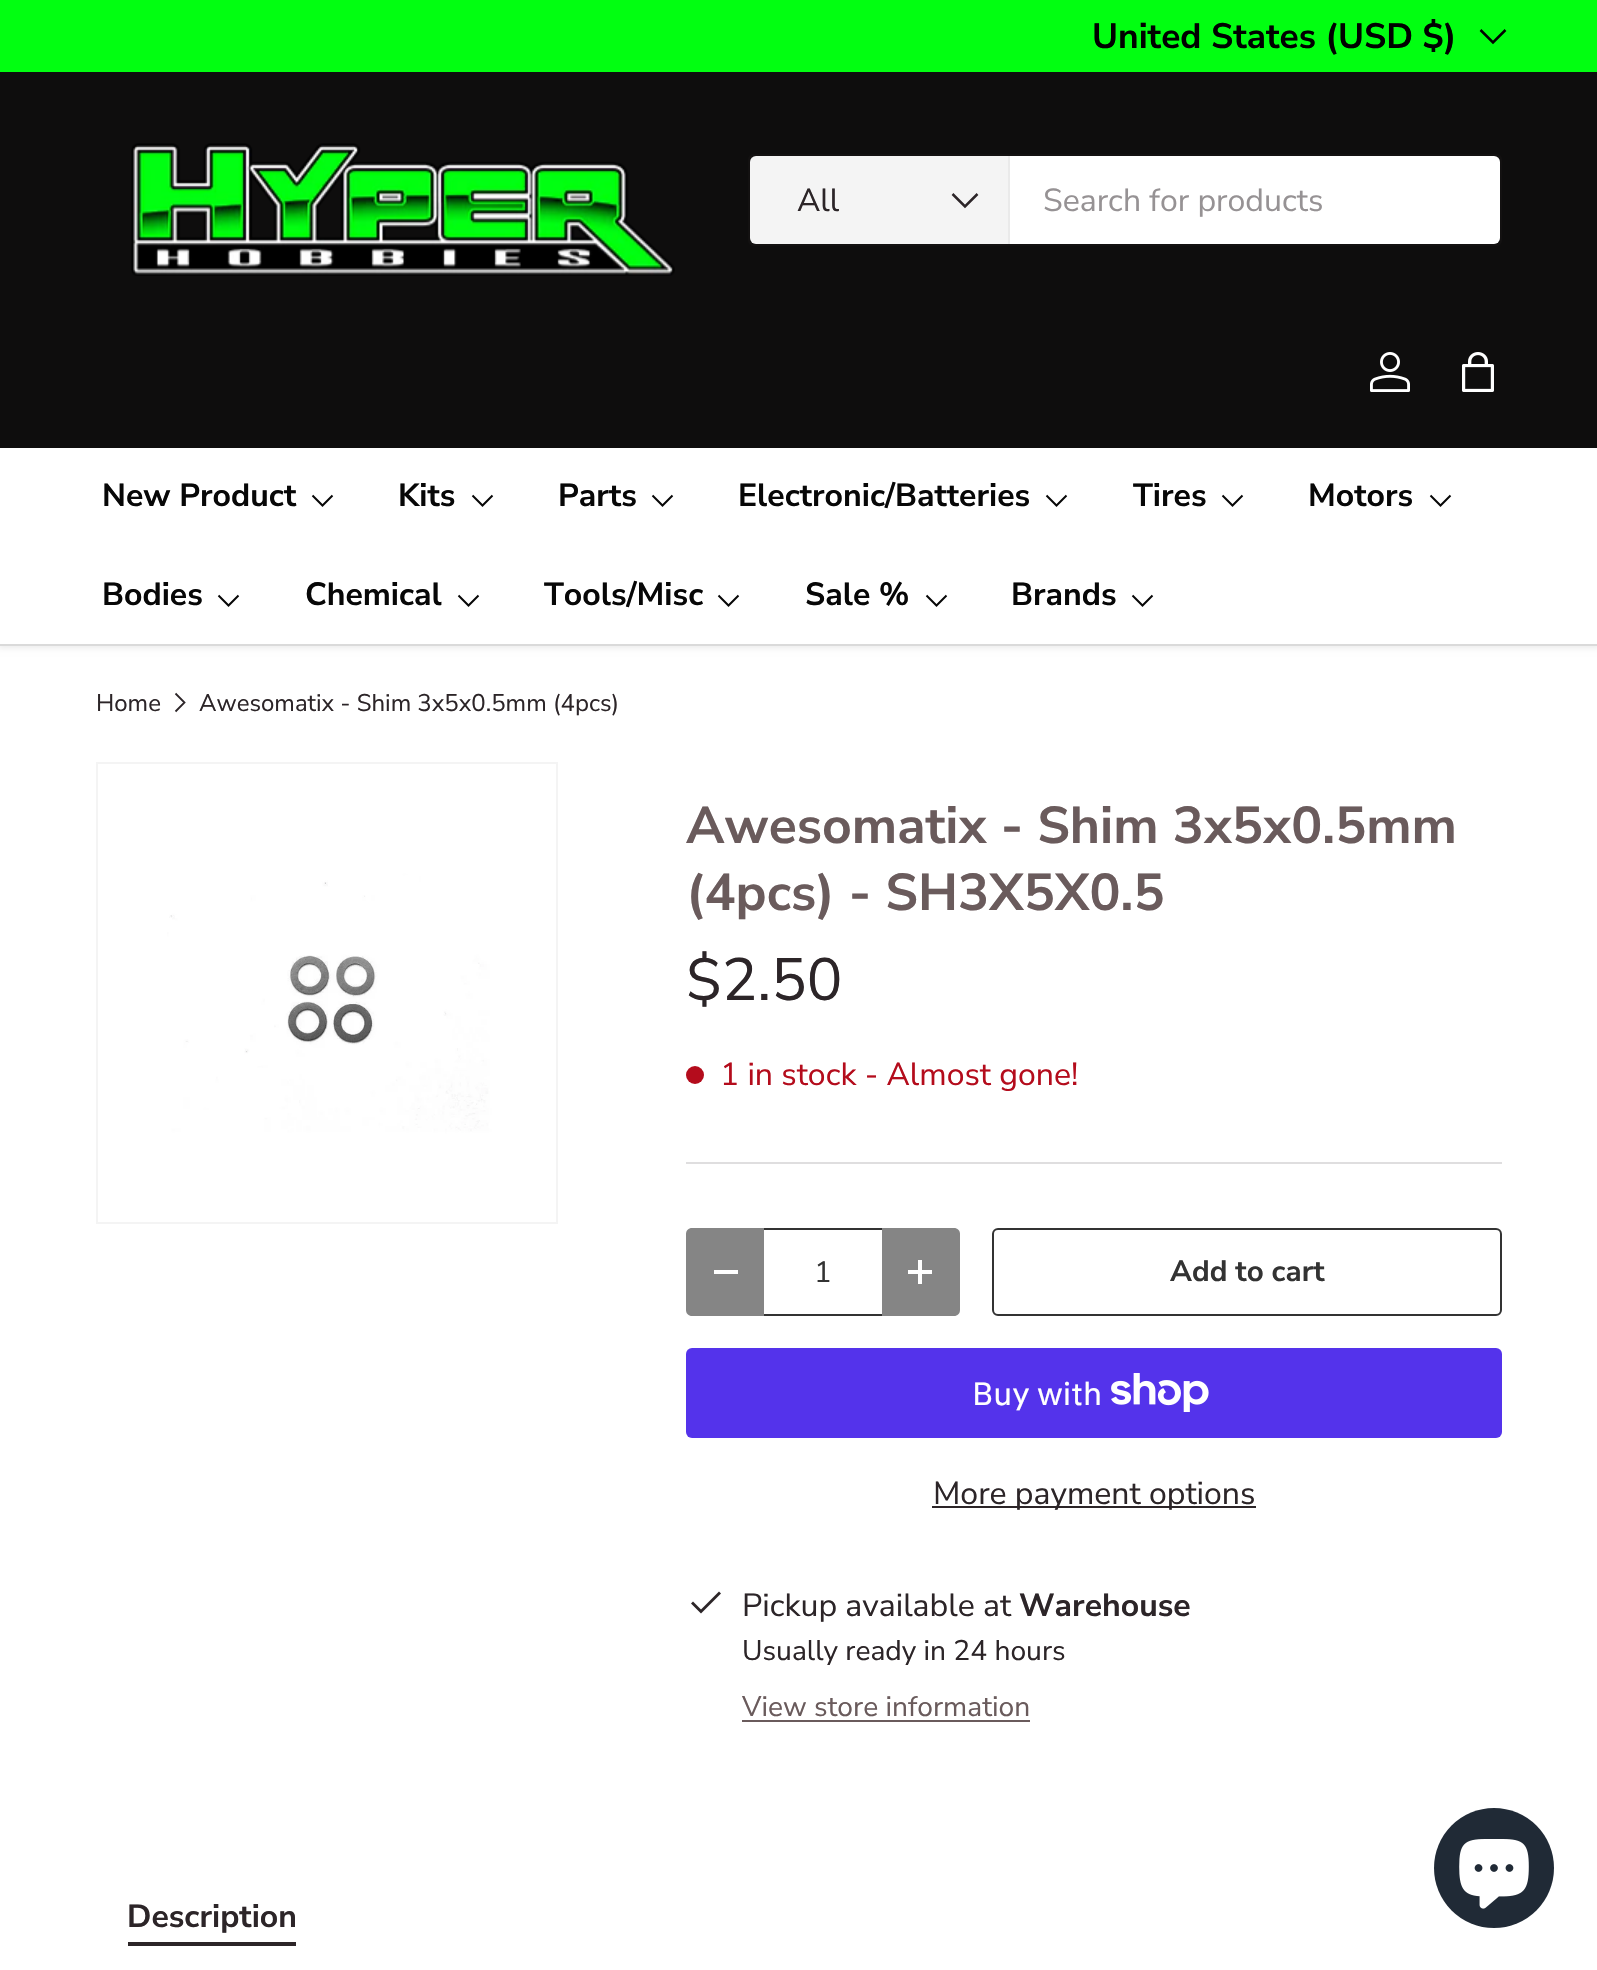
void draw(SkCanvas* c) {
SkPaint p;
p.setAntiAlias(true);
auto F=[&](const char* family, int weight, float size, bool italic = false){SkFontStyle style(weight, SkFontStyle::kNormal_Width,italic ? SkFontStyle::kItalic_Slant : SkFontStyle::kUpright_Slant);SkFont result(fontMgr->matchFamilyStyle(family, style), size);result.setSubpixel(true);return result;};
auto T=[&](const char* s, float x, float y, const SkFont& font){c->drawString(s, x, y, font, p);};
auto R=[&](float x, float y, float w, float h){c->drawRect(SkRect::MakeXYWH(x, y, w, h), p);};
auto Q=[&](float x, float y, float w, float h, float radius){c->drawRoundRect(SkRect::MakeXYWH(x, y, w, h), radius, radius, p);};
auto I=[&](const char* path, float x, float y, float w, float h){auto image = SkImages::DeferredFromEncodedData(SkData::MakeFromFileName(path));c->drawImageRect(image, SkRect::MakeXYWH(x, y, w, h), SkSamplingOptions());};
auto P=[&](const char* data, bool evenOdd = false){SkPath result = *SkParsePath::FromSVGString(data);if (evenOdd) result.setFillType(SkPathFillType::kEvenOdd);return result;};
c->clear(0xffffffff);
p.setColor(0x14000000);
p.setMaskFilter(SkMaskFilter::MakeBlur(kNormal_SkBlurStyle, 3));
c->drawRect(SkRect::MakeXYWH(-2,70,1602,578),p);
p.setMaskFilter(nullptr);
p.setColor(0xff01ff11);
R(0,0,1597,72);
auto f1 = F("Nunito Sans",700,35.25);
p.setColor(0xff000000);
T("United States (USD $)",1092,48,f1);
p.setStroke(true);
p.setStrokeWidth(2.5);
c->drawPath(P("M1505.5 30l-12.5 12.5l-12.5-12.5"),p);
p.setStroke(false);
p.setColor(0xff0e0d0d);
R(0,72,1597,376);
I("1.png",131,143,544,133);
p.setStroke(true);
p.setStrokeWidth(2);
p.setColor(0xff131111);
c->drawRoundRect(SkRect::MakeXYWH(749,155,752,90),5,5,p);
p.setStroke(false);
p.setColor(0xffffffff);
Q(750,156,750,88,6);
p.setColor(0x0d2c2528);
R(750,156,258,88);
p.setColor(0xffeaeaea);
R(1008,156,2,88);
auto f2 = F("Nunito Sans",400,32);
p.setColor(0xff2c2528);
T("All",797,211,f2);
p.setStroke(true);
p.setStrokeWidth(2.5);
c->drawPath(P("M977.5 194l-12.5 12.5l-12.5-12.5"),p);
p.setStroke(false);
p.setColor(0xff969294);
T("Search for products",1043,211,f2);
I("2.png",1370,352,40,40);
I("3.png",1462,352,32,40);
p.setColor(0xffffffff);
R(0,448,1597,196);
auto f3 = F("Nunito Sans",700,32);
p.setColor(0xff070707);
T("New Product",102,506,f3);
p.setStroke(true);
p.setStrokeWidth(2);
c->drawPath(P("M332.5 495.5l-10 10l-10-10"),p);
p.setStroke(false);
T("Kits",398,506,f3);
p.setStroke(true);
c->drawPath(P("M492.5 495.5l-10 10l-10-10"),p);
p.setStroke(false);
T("Parts",558,506,f3);
p.setStroke(true);
c->drawPath(P("M672.5 495.5l-10 10l-10-10"),p);
p.setStroke(false);
T("Electronic/Batteries",738,506,f3);
p.setStroke(true);
c->drawPath(P("M1066.5 495.5l-10 10l-10-10"),p);
p.setStroke(false);
T("Tires",1133,506,f3);
p.setStroke(true);
c->drawPath(P("M1242.5 495.5l-10 10l-10-10"),p);
p.setStroke(false);
T("Motors",1308,506,f3);
p.setStroke(true);
c->drawPath(P("M1450.5 495.5l-10 10l-10-10"),p);
p.setStroke(false);
T("Bodies",102,605,f3);
p.setStroke(true);
c->drawPath(P("M238.5 595.5l-10 10l-10-10"),p);
p.setStroke(false);
T("Chemical",305,605,f3);
p.setStroke(true);
c->drawPath(P("M478.5 595.5l-10 10l-10-10"),p);
p.setStroke(false);
T("Tools/Misc",544,605,f3);
p.setStroke(true);
c->drawPath(P("M738.5 595.5l-10 10l-10-10"),p);
p.setStroke(false);
T("Sale %",805,605,f3);
p.setStroke(true);
c->drawPath(P("M946.5 595.5l-10 10l-10-10"),p);
p.setStroke(false);
T("Brands",1011,605,f3);
p.setStroke(true);
c->drawPath(P("M1152.5 595.5l-10 10l-10-10"),p);
p.setStroke(false);
p.setColor(0xffdadada);
R(0,644,1597,2);
auto f4 = F("Nunito Sans",400,24);
p.setColor(0xff2c2528);
T("Home",96,711,f4);
p.setStroke(true);
p.setStrokeWidth(1.8);
c->drawPath(P("M175.5 693.5l9 9l-9 9"),p);
p.setStroke(false);
T("Awesomatix - Shim 3x5x0.5mm (4pcs)",199,711,f4);
p.setColor(0xfff4f4f4);
R(96,762,462,462);
I("4.png",98,764,458,458);
auto f5 = F("Nunito Sans",700,51.75);
p.setColor(0xff6a5b5c);
T("Awesomatix - Shim 3x5x0.5mm",686,843,f5);
T("(4pcs) - SH3X5X0.5",686,910,f5);
auto f6 = F("Nunito Sans",400,59.5);
p.setColor(0xff2c2528);
T("$2.50",686,1000,f6);
p.setColor(0xffb40c1c);
c->drawCircle(695,1075,9,p);
T("1 in stock - Almost gone!",720,1085,f2);
p.setColor(0xffdfdedf);
R(686,1162,816,2);
p.setColor(0xff858585);
c->drawPath(P("M692 1228h72v88h-72c-3.5 0-6-2.5-6-6v-76c0-3.5 2.5-6 6-6z"),p);
p.setColor(0xffffffff);
R(714,1270,24,4);
p.setColor(0xff333333);
R(764,1314,118,2);
R(764,1228,118,2);
auto f7 = F("Nunito Sans",400,29.5);
T("1",814,1282,f7);
p.setColor(0xff858585);
c->drawPath(P("M882 1228h72c3.5 0 6 2.5 6 6v76c0 3.5-2.5 6-6 6h-72z"),p);
p.setColor(0xffffffff);
R(908,1270,24,4);
R(918,1260,4,24);
p.setStroke(true);
p.setStrokeWidth(2);
p.setColor(0xff333333);
c->drawRoundRect(SkRect::MakeXYWH(993,1229,508,86),5,5,p);
auto f8 = F("Nunito Sans",700,29.5);
p.setStroke(false);
T("Add to cart",1170,1281,f8);
p.setColor(0xff5433eb);
Q(686,1348,816,90,6);
auto f9 = F("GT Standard",400,32);
p.setColor(0xffffffff);
T("Buy with",972,1405,f9);
I("5.png",1111,1373,98,39);
p.setColor(0xff2c2528);
R(932,1506,324,2);
T("More payment options",933,1504,f2);
c->drawPath(P("M719 1591.5l2 2l-20 20l-10-10l2-2l8 8z"),p);
T("Pickup available at",742,1616,f2);
T("Warehouse",1019,1616,f3);
auto f10 = F("Nunito Sans",400,28.2);
T("Usually ready in 24 hours",742,1660,f10);
p.setColor(0xff6a5b5c);
T("View store information",742,1716,f10);
R(742,1720,288,2);
p.setColor(0xff2c2528);
T("Description",127,1927,f3);
R(128,1942,168,4);
p.setColor(0xff202a36);
c->drawCircle(1494,1868,60,p);
I("6.png",1459,1839,70,70);
}
